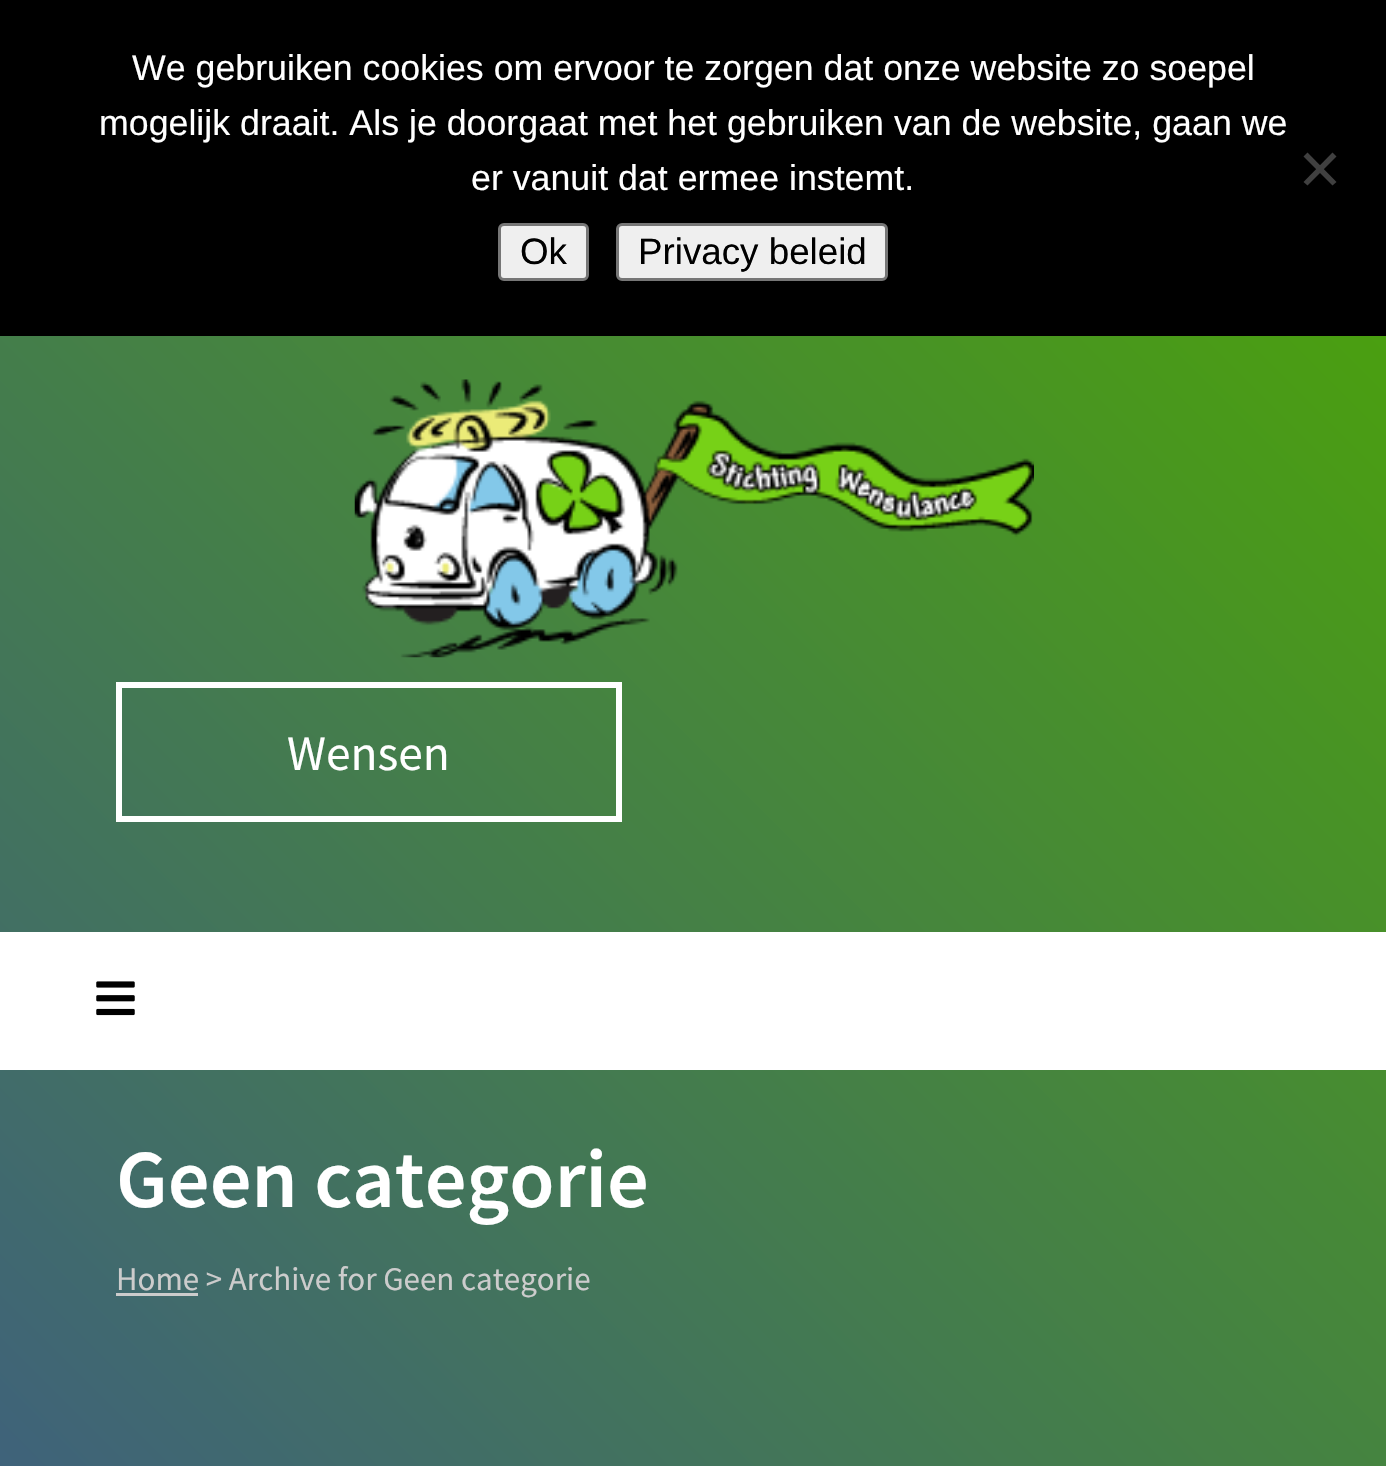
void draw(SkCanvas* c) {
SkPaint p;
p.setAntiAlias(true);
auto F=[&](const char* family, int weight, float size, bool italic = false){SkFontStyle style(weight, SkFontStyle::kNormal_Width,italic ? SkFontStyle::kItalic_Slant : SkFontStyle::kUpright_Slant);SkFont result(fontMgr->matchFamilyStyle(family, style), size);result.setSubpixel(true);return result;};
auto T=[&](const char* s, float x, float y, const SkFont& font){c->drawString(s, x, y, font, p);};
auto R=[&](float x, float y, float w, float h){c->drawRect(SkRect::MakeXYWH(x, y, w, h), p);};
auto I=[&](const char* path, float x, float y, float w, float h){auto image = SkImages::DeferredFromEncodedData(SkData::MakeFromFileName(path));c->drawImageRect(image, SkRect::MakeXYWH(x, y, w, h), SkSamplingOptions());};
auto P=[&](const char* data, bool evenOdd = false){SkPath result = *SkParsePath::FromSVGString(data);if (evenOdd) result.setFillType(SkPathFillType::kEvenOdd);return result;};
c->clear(0xffffffff);
p.setColor(0xff000000);
R(0,0,1386,336);
auto f1 = F("Liberation Sans",400,35.75);
p.setColor(0xffffffff);
T("We gebruiken cookies om ervoor te zorgen dat onze website zo soepel",132,80,f1);
T("mogelijk draait. Als je doorgaat met het gebruiken van de website, gaan we",99,135,f1);
T("er vanuit dat ermee instemt.",471,190,f1);
p.setColor(0xff404040);
c->drawPath(P("M1332.5 152.5l4 4l-29 29l-4-3.5z"),p);
c->drawPath(P("M1303.5 156.5l4-4l29 29.5l-4 3.5z"),p);
p.setColor(0xffefefef);
c->drawRoundRect(SkRect::MakeXYWH(499.5,224.5,88,55),4.5,4.5,p);
p.setStroke(true);
p.setStrokeWidth(3);
p.setColor(0xff767676);
c->drawRoundRect(SkRect::MakeXYWH(499.5,224.5,88,55),4.5,4.5,p);
auto f2 = F("Liberation Sans",400,36.75);
p.setStroke(false);
p.setColor(0xff000000);
T("Ok",520,264,f2);
p.setColor(0xffefefef);
c->drawRoundRect(SkRect::MakeXYWH(617.5,224.5,269,55),4.5,4.5,p);
p.setStroke(true);
p.setColor(0xff767676);
c->drawRoundRect(SkRect::MakeXYWH(617.5,224.5,269,55),4.5,4.5,p);
p.setStroke(false);
p.setColor(0xff000000);
T("Privacy beleid",638,264,f2);
{
const SkColor colors[] = {0xff3f627b,0xff4ca702};
const float stops[] = {0,1};
const SkPoint ends[] = {{-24,1458}, {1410,24}};
p.setShader(SkGradientShader::MakeLinear(ends, colors, stops, 2, SkTileMode::kClamp));
p.setAlpha(255);
}
R(0,336,1386,1130);
I("1.png",354,379,680,279);
p.setStroke(true);
p.setStrokeWidth(6);
p.setShader(nullptr);
p.setColor(0xffffffff);
c->drawRect(SkRect::MakeXYWH(119,685,500,134),p);
auto f3 = F("Source Sans Pro",400,49.5);
p.setStroke(false);
T("Wensen",287,770,f3);
R(0,932,1386,138);
I("2.png",96,981,39,35);
auto f4 = F("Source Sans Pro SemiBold",600,82.5);
T("Geen categorie",116,1207,f4);
p.setColor(0xffcccccc);
R(116,1293,82,3);
auto f5 = F("Source Sans Pro",400,33);
T("Home > Archive for Geen categorie",116,1290,f5);
}
